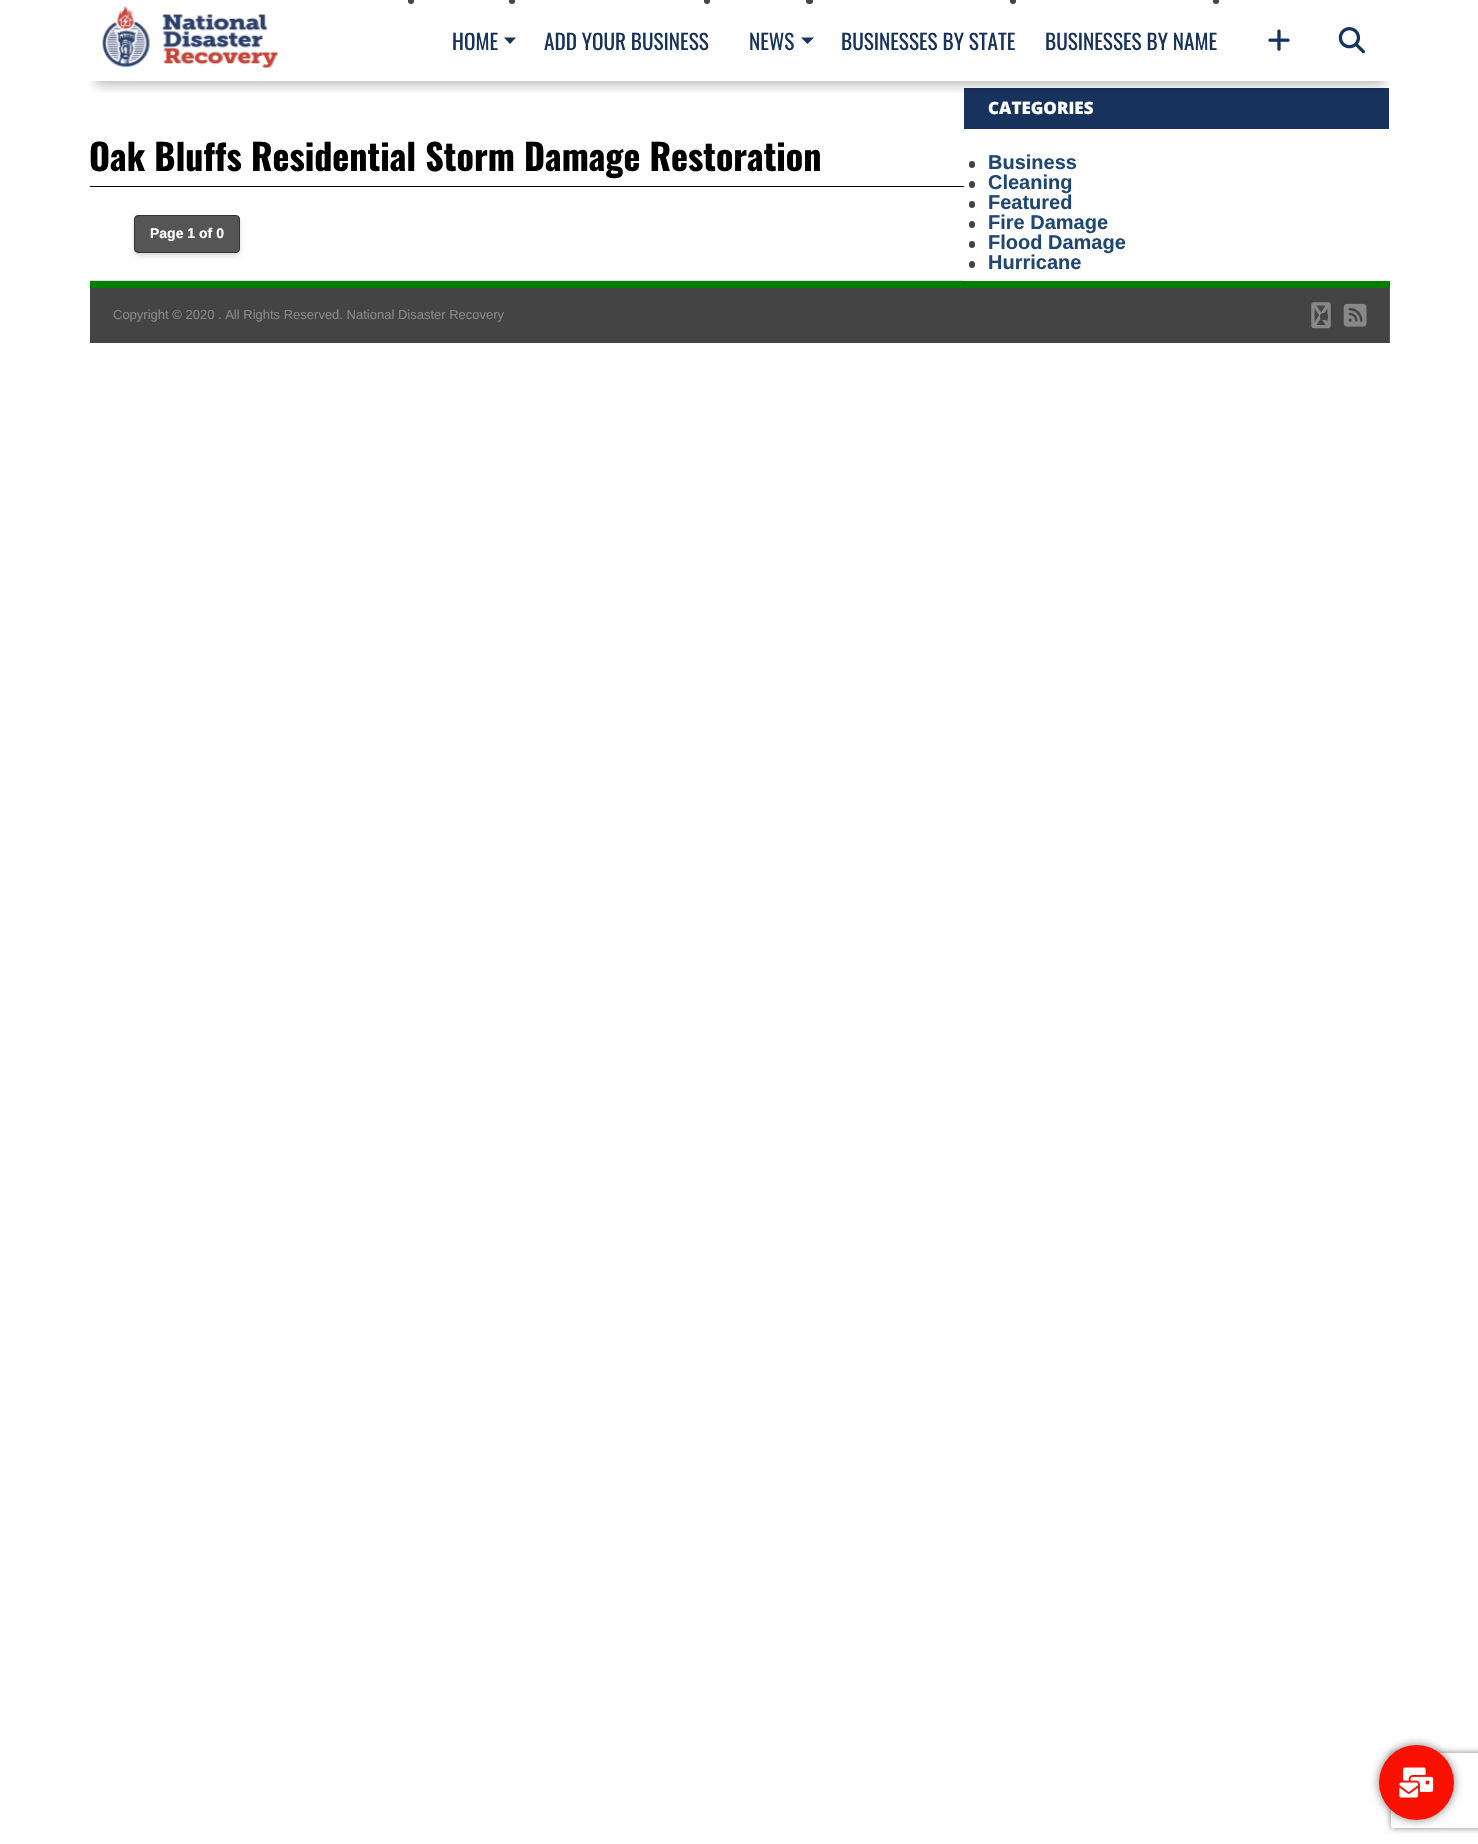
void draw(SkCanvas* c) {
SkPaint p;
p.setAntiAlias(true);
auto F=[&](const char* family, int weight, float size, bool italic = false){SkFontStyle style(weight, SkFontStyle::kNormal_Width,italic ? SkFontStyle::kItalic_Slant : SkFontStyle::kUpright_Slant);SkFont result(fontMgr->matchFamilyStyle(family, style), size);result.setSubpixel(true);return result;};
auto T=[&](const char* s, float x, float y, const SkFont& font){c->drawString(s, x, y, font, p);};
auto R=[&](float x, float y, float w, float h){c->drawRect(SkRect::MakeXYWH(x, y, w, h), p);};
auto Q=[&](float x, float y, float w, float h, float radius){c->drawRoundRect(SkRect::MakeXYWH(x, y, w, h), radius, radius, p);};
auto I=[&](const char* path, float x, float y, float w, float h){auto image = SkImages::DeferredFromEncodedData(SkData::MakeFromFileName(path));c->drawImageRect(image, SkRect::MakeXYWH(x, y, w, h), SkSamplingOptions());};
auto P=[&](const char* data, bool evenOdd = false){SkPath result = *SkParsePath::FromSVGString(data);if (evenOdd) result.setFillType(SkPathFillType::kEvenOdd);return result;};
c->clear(0xffffffff);
p.setColor(0xff17325c);
R(964,88,425,41);
c->save();
c->clipRect(SkRect::MakeXYWH(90,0,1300,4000));
c->clipRect(SkRect::MakeXYWH(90,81,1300,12));
p.setColor(0x4d000000);
p.setMaskFilter(SkMaskFilter::MakeBlur(kNormal_SkBlurStyle, 6));
c->drawRect(SkRect::MakeXYWH(96,15,1288,69),p);
p.setMaskFilter(nullptr);
c->restore();
I("1.png",102,6,176,62);
p.setColor(0xff444444);
c->drawCircle(1216,1,3,p);
c->drawCircle(411,1,3,p);
auto f1 = F("Oswald",400,21.25);
p.setColor(0xff17325c);
T("HOME",452,50,f1);
c->drawPath(P("M504 37.5h12l-6 6.5z"),p);
p.setColor(0xff444444);
c->drawCircle(512,1,3,p);
p.setColor(0xff17325c);
T("ADD YOUR BUSINESS",544,50,f1);
p.setColor(0xff444444);
c->drawCircle(707,1,3,p);
p.setColor(0xff17325c);
T("NEWS",749,50,f1);
c->drawPath(P("M801 37.5h13l-6.5 6.5z"),p);
p.setColor(0xff444444);
Q(806,-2,7,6,3);
p.setColor(0xff17325c);
T("BUSINESSES BY STATE",841,50,f1);
p.setColor(0xff444444);
c->drawCircle(1013,1,3,p);
p.setColor(0xff17325c);
T("BUSINESSES BY NAME",1045,50,f1);
I("2.png",1268,29,22,22);
I("3.png",1338,27,27,27);
p.setColor(0xff000000);
R(90,186,874,1);
auto f2 = F("Oswald",700,36);
T("Oak Bluffs Residential Storm Damage Restoration",89,171,f2);
p.setColor(0xffdddddd);
R(90,280,873,1);
p.setColor(0xffcccccc);
p.setMaskFilter(SkMaskFilter::MakeBlur(kNormal_SkBlurStyle, 3));
c->drawRoundRect(SkRect::MakeXYWH(135,220,104,35),2.5,2.5,p);
p.setMaskFilter(nullptr);
p.setColor(0xff555555);
c->drawRoundRect(SkRect::MakeXYWH(134.5,215.5,105,37),3.5,3.5,p);
p.setStroke(true);
p.setStrokeWidth(1);
p.setColor(0xff333333);
c->drawRoundRect(SkRect::MakeXYWH(134.5,215.5,105,37),3.5,3.5,p);
auto f3 = F("Liberation Sans",700,14);
p.setStroke(false);
p.setColor(0xffffffff);
T("Page 1 of 0",150,238,f3);
auto f4 = F("Open Sans",800,17);
T("CATEGORIES",988,114,f4);
p.setColor(0xff444444);
Q(969,161,6,7,3);
auto f5 = F("Liberation Sans",700,20);
p.setColor(0xff1f4773);
T("Business",988,169,f5);
p.setColor(0xff444444);
Q(969,181,6,7,3);
p.setColor(0xff1f4773);
T("Cleaning",988,189,f5);
p.setColor(0xff444444);
Q(969,201,6,7,3);
p.setColor(0xff1f4773);
T("Featured",988,209,f5);
p.setColor(0xff444444);
Q(969,221,6,7,3);
p.setColor(0xff1f4773);
T("Fire Damage",988,229,f5);
p.setColor(0xff444444);
Q(969,241,6,7,3);
p.setColor(0xff1f4773);
T("Flood Damage",988,249,f5);
p.setColor(0xff444444);
Q(969,261,6,7,3);
p.setColor(0xff1f4773);
T("Hurricane",988,269,f5);
p.setColor(0xff555555);
R(1389,288,1,55);
p.setColor(0xff008000);
R(90,281,1300,7);
p.setColor(0xff444444);
R(90,288,1299,55);
auto f6 = F("Liberation Sans",400,13);
p.setColor(0xff888888);
T("Copyright © 2020 . All Rights Reserved. National Disaster Recovery",113,319,f6);
I("4.png",1311,302,20,27);
p.setColor(0xff444444);
Q(1320,313,8,7,3.5);
I("5.png",1343,303,24,24);
p.setColor(0x80000000);
p.setMaskFilter(SkMaskFilter::MakeBlur(kNormal_SkBlurStyle, 5));
c->drawRoundRect(SkRect::MakeXYWH(1379,1745,75,75),37.5,37.5,p);
p.setMaskFilter(nullptr);
c->save();
c->clipPath(P("M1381 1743h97v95h-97zm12.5 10h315c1.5 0 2.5 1 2.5 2.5v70c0 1.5-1 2.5-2.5 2.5h-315c-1.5 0-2.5-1-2.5-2.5v-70c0-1.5 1-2.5 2.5-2.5z",true),true);
p.setColor(0xff808080);
p.setMaskFilter(SkMaskFilter::MakeBlur(kNormal_SkBlurStyle, 3));
c->drawRoundRect(SkRect::MakeXYWH(1391,1753,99,75),2.5,2.5,p);
p.setMaskFilter(nullptr);
c->restore();
p.setColor(0xfff91000);
c->drawCircle(1416.5,1782.5,37.5,p);
I("6.png",1399,1767,35,31);
}
